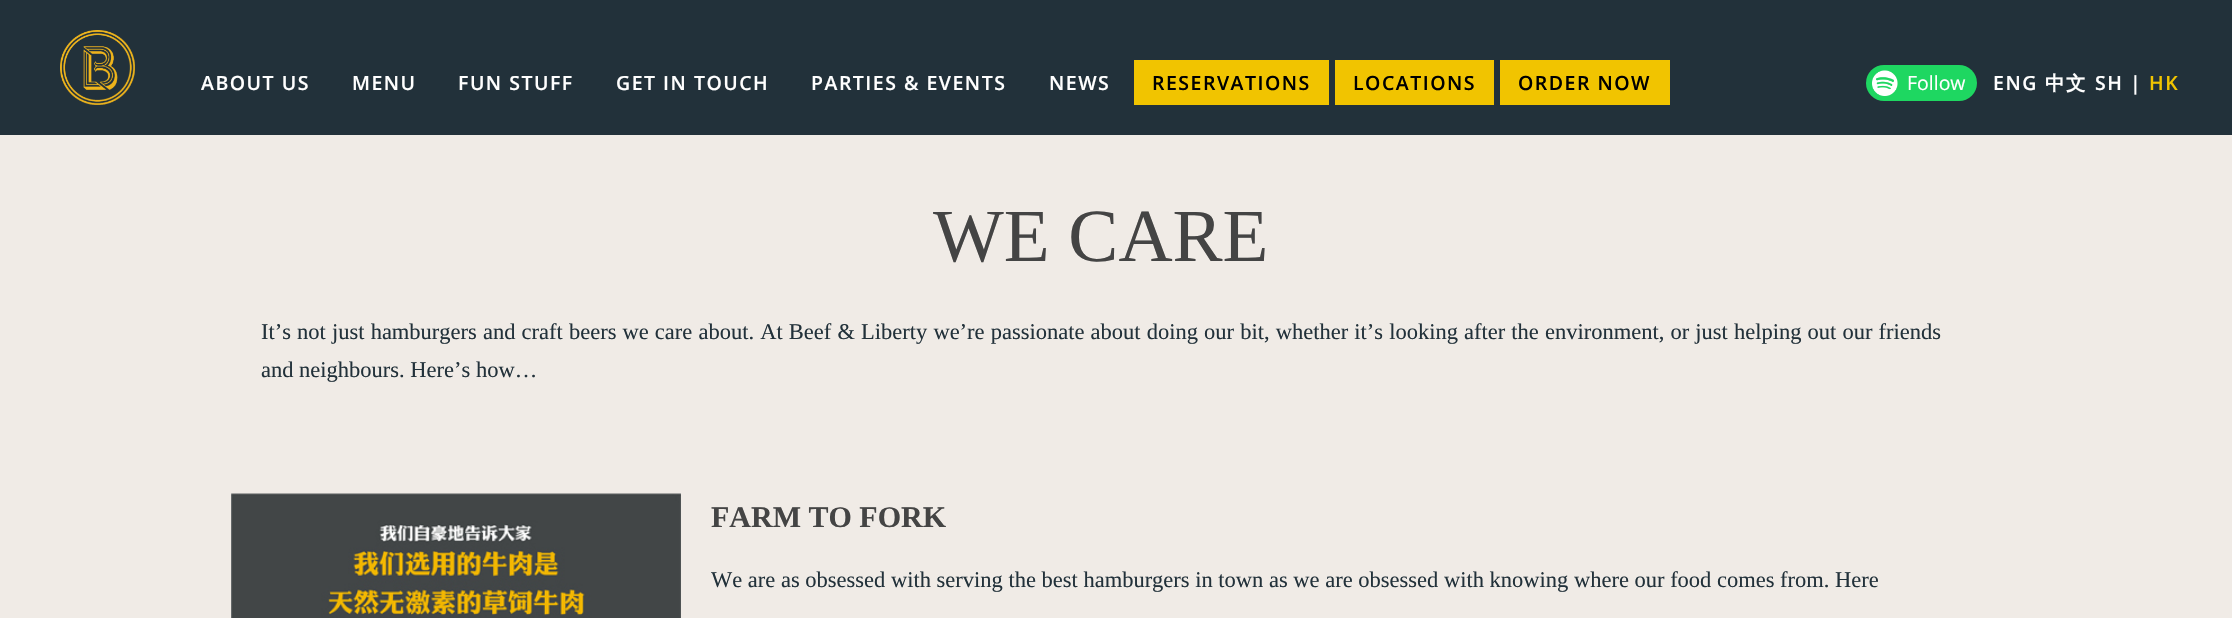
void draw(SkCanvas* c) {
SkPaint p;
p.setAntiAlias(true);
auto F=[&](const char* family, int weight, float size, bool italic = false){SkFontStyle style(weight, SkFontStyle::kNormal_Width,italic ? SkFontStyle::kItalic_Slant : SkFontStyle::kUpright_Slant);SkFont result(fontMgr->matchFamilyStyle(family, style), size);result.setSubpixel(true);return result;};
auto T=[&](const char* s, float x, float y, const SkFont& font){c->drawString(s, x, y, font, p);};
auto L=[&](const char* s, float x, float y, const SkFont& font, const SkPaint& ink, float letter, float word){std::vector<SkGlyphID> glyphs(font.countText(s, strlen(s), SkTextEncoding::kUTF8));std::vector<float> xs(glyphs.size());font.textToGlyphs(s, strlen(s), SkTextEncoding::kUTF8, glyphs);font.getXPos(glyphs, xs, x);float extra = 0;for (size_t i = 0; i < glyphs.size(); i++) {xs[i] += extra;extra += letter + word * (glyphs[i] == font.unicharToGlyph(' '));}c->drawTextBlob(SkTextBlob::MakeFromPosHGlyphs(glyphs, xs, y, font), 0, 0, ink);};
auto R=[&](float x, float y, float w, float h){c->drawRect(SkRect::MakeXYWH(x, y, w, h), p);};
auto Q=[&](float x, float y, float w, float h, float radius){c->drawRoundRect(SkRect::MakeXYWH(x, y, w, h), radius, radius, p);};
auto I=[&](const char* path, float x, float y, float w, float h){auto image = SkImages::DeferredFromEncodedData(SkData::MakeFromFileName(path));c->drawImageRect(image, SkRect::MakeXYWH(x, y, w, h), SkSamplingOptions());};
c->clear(0xfff0ebe6);
p.setColor(0xff22313a);
R(0,0,2232,135);
I("1.png",60,30,75,75);
auto f1 = F("Open Sans",600,19.5);
p.setColor(0xffffffff);
L("ABOUT US",201,90,f1,p,1.5,0);
L("MENU",352,90,f1,p,1.5,0);
L("FUN STUFF",458,90,f1,p,1.5,0);
L("GET IN TOUCH",616,90,f1,p,1.5,0);
L("PARTIES & EVENTS",811,90,f1,p,1.5,0);
L("NEWS",1049,90,f1,p,1.5,0);
p.setColor(0xfff1c400);
R(1134,60,195,45);
p.setColor(0xff000000);
L("RESERVATIONS",1152,90,f1,p,1.5,0);
p.setColor(0xfff1c400);
R(1335,60,159,45);
p.setColor(0xff000000);
L("LOCATIONS",1353,90,f1,p,1.5,0);
p.setColor(0xfff1c400);
R(1500,60,170,45);
p.setColor(0xff000000);
L("ORDER NOW",1518,90,f1,p,1.5,0);
p.setColor(0xffffffff);
L("ENG",1993,90,f1,p,1.5,0);
auto f2 = F("WenQuanYi Zen Hei",700,19.5);
L("中文",2045,90,f2,p,1.5,0);
L("SH |",2095,90,f1,p,1.5,0);
p.setColor(0xfff1c400);
L("HK",2149,90,f1,p,1.5,0);
auto f3 = F("Liberation Serif",400,75);
p.setColor(0xff444444);
T("WE CARE",933,261,f3);
auto f4 = F("Liberation Serif",400,22.5);
p.setColor(0xff22313a);
L("It’s not just hamburgers and craft beers we care about. At Beef & Liberty we’re passionate about doing our bit, whether it’s looking after the environment, or just helping out our friends",261,339,f4,p,0,.5);
T("and neighbours. Here’s how…",261,377,f4);
I("2.png",231,493,450,125);
auto f5 = F("Liberation Serif",700,30);
p.setColor(0xff444444);
T("FARM TO FORK",711,527,f5);
p.setColor(0xff22313a);
T("We are as obsessed with serving the best hamburgers in town as we are obsessed with knowing where our food comes from. Here",711,587,f4);
p.setColor(0xff1ed761);
Q(1866,65,111,36,18);
I("3.png",1872,70,26,26);
auto f6 = F("Open Sans",400,19.5);
p.setColor(0xffffffff);
T("Follow",1907,90,f6);
}
